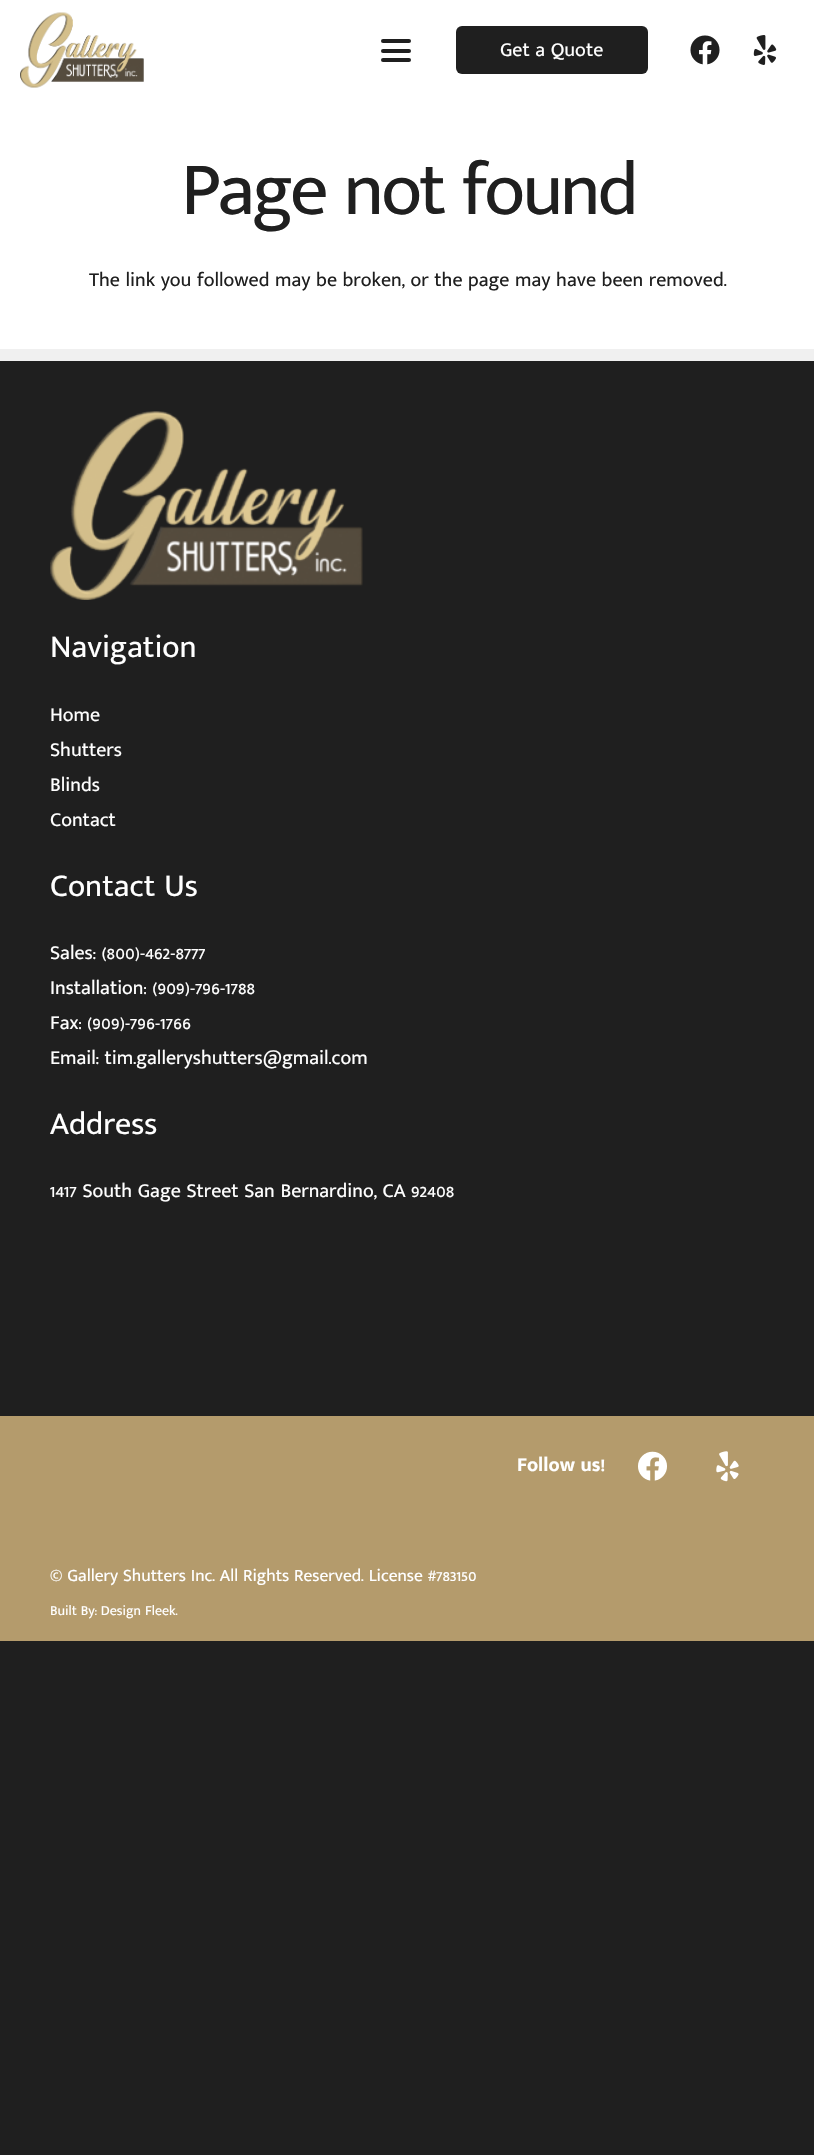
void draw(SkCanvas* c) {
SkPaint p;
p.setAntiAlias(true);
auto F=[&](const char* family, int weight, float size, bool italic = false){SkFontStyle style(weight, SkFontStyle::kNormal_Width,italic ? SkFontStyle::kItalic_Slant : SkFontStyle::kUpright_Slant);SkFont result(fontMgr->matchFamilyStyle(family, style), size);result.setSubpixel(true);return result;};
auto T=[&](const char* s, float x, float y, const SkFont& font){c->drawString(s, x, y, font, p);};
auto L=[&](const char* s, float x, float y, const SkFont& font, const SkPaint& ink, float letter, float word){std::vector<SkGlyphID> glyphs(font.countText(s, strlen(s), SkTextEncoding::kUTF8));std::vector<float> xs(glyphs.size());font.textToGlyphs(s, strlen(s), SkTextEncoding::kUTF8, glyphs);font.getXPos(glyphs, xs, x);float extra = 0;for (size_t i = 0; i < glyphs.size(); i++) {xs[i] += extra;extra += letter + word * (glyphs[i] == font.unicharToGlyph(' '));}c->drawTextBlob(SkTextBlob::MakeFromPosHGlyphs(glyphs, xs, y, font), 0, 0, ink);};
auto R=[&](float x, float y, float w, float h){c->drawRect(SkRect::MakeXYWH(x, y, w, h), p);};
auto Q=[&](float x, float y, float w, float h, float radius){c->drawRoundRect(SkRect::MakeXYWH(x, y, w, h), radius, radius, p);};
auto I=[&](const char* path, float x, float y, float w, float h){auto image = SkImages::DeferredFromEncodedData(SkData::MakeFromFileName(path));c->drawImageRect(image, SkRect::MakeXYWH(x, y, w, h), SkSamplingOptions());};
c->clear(0xff1f1f1f);
p.setColor(0xffffffff);
R(0,0,814,349);
I("1.png",20,12,124,76);
p.setColor(0xff1f1f1f);
Q(381,49,30,4,2);
Q(381,39,30,4,2);
Q(381,58,30,4,2);
Q(456,26,192,48,6);
auto f1 = F("Mukta Malar",400,20);
p.setColor(0xffffffff);
T("Get a Quote",500,56,f1);
I("2.png",690,35,30,30);
I("3.png",753,35,24,30);
auto f2 = F("Mukta Malar",400,76);
p.setColor(0xff1f1f1f);
L("Page not found",181,214,f2,p,-3,0);
T("The link you followed may be broken, or the page may have been removed.",89,286,f1);
p.setColor(0xfff0f0f0);
R(0,349,814,12);
I("4.png",50,411,313,189);
auto f3 = F("Mukta Malar",400,32);
p.setColor(0xffffffff);
T("Navigation",50,657,f3);
T("Home",50,721,f1);
T("Shutters",50,756,f1);
T("Blinds",50,791,f1);
T("Contact",50,826,f1);
T("Contact Us",50,896,f3);
T("Sales: (800)-462-8777",50,959,f1);
T("Installation: (909)-796-1788",50,994,f1);
T("Fax: (909)-796-1766",50,1029,f1);
T("Email: tim.galleryshutters@gmail.com",50,1064,f1);
T("Address",50,1134,f3);
T("1417 South Gage Street San Bernardino, CA 92408",50,1197,f1);
p.setColor(0xffb49b6c);
R(0,1416,814,225);
auto f4 = F("Mukta Malar",700,20);
p.setColor(0xffffffff);
T("Follow us!",517,1471,f4);
I("5.png",638,1451,29,30);
I("6.png",716,1451,23,31);
auto f5 = F("Mukta Malar",400,17.5);
T("© Gallery Shutters Inc. All Rights Reserved. License #783150",50,1581,f5);
auto f6 = F("Mukta Malar",400,14);
T("Built By: Design Fleek.",50,1615,f6);
}
